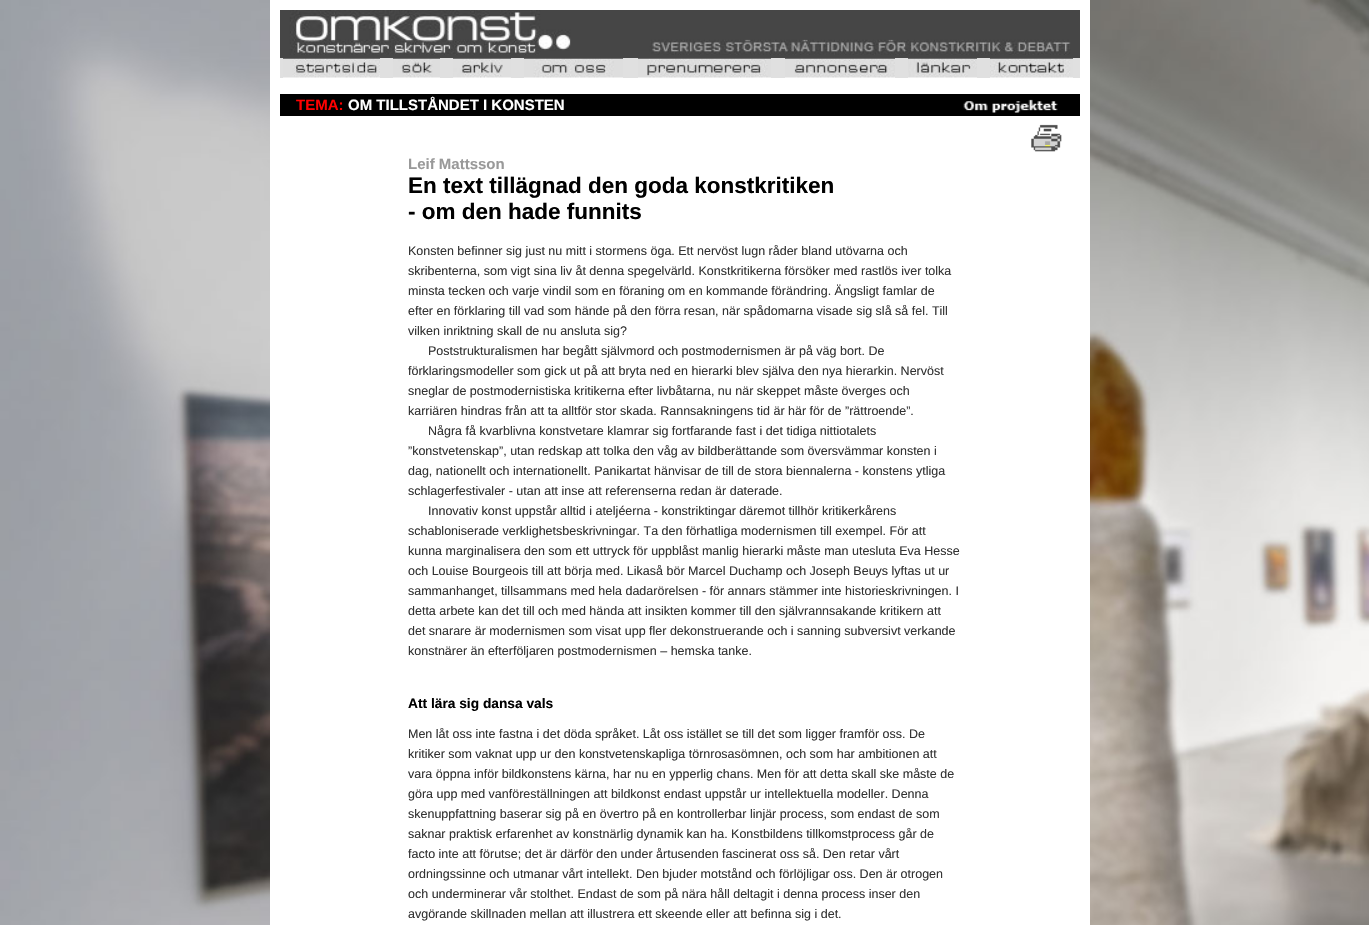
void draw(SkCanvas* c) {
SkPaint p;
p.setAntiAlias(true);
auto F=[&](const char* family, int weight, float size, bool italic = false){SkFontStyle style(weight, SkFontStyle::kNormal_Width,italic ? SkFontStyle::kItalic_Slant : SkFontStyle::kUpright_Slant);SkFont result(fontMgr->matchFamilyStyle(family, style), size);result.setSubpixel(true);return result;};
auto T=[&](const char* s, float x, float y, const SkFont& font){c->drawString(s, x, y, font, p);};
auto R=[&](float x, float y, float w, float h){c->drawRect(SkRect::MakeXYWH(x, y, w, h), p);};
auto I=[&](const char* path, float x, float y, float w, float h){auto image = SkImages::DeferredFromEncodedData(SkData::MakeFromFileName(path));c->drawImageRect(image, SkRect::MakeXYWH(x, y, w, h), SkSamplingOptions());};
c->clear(0xffffffff);
I("1.png",0,0,1369,925);
p.setColor(0xffffffff);
R(270,0,820,925);
I("2.png",280,10,800,45);
p.setColor(0xff464646);
R(280,55,800,4);
p.setColor(0xffe0e0e0);
R(280,58,3,20);
I("3.png",283,58,97,20);
R(380,58,13,20);
I("4.png",393,58,47,20);
R(440,58,13,20);
I("5.png",453,58,58,20);
R(511,58,13,20);
I("6.png",524,58,99,20);
R(623,58,15,20);
I("7.png",638,58,133,20);
R(771,58,14,20);
I("8.png",785,58,110,20);
R(895,58,13,20);
I("9.png",908,58,69,20);
R(977,58,13,20);
I("10.png",990,58,83,20);
R(1073,58,7,20);
p.setColor(0xff000000);
R(280,94,800,22);
auto f1 = F("Liberation Sans",700,15);
p.setColor(0xffff0000);
T("TEMA:",296,110,f1);
p.setColor(0xffffffff);
T("OM TILLSTÅNDET I KONSTEN",348,110,f1);
I("11.png",963,99,95,14);
I("12.png",1031,124,31,28);
p.setColor(0xff999999);
T("Leif Mattsson",408,169,f1);
auto f2 = F("Liberation Sans",700,22.5);
p.setColor(0xff000000);
T("En text tillägnad den goda konstkritiken",408,193,f2);
T("- om den hade funnits",408,219,f2);
auto f3 = F("Liberation Sans",400,12.5);
p.setColor(0xff333333);
T("Konsten befinner sig just nu mitt i stormens öga. Ett nervöst lugn råder bland utövarna och",408,255,f3);
T("skribenterna, som vigt sina liv åt denna spegelvärld. Konstkritikerna försöker med rastlös iver tolka",408,275,f3);
T("minsta tecken och varje vindil som en föraning om en kommande förändring. Ängsligt famlar de",408,295,f3);
T("efter en förklaring till vad som hände på den förra resan, när spådomarna visade sig slå så fel. Till",408,315,f3);
T("vilken inriktning skall de nu ansluta sig?",408,335,f3);
T("Poststrukturalismen har begått självmord och postmodernismen är på väg bort. De",428,355,f3);
T("förklaringsmodeller som gick ut på att bryta ned en hierarki blev själva den nya hierarkin. Nervöst",408,375,f3);
T("sneglar de postmodernistiska kritikerna efter livbåtarna, nu när skeppet måste överges och",408,395,f3);
T("karriären hindras från att ta alltför stor skada. Rannsakningens tid är här för de ”rättroende”.",408,415,f3);
T("Några få kvarblivna konstvetare klamrar sig fortfarande fast i det tidiga nittiotalets",428,435,f3);
T("”konstvetenskap”, utan redskap att tolka den våg av bildberättande som översvämmar konsten i",408,455,f3);
T("dag, nationellt och internationellt. Panikartat hänvisar de till de stora biennalerna - konstens ytliga",408,475,f3);
T("schlagerfestivaler - utan att inse att referenserna redan är daterade.",408,495,f3);
T("Innovativ konst uppstår alltid i ateljéerna - konstriktingar däremot tillhör kritikerkårens",428,515,f3);
T("schabloniserade verklighetsbeskrivningar. Ta den förhatliga modernismen till exempel. För att",408,535,f3);
T("kunna marginalisera den som ett uttryck för uppblåst manlig hierarki måste man utesluta Eva Hesse",408,555,f3);
T("och Louise Bourgeois till att börja med. Likaså bör Marcel Duchamp och Joseph Beuys lyftas ut ur",408,575,f3);
T("sammanhanget, tillsammans med hela dadarörelsen - för annars stämmer inte historieskrivningen. I",408,595,f3);
T("detta arbete kan det till och med hända att insikten kommer till den självrannsakande kritikern att",408,615,f3);
T("det snarare är modernismen som visat upp fler dekonstruerande och i sanning subversivt verkande",408,635,f3);
T("konstnärer än efterföljaren postmodernismen – hemska tanke.",408,655,f3);
auto f4 = F("Liberation Sans",700,13.75);
p.setColor(0xff000000);
T("Att lära sig dansa vals",408,708,f4);
p.setColor(0xff333333);
T("Men låt oss inte fastna i det döda språket. Låt oss istället se till det som ligger framför oss. De",408,738,f3);
T("kritiker som vaknat upp ur den konstvetenskapliga törnrosasömnen, och som har ambitionen att",408,758,f3);
T("vara öppna inför bildkonstens kärna, har nu en ypperlig chans. Men för att detta skall ske måste de",408,778,f3);
T("göra upp med vanföreställningen att bildkonst endast uppstår ur intellektuella modeller. Denna",408,798,f3);
T("skenuppfattning baserar sig på en övertro på en kontrollerbar linjär process, som endast de som",408,818,f3);
T("saknar praktisk erfarenhet av konstnärlig dynamik kan ha. Konstbildens tillkomstprocess går de",408,838,f3);
T("facto inte att förutse; det är därför den under årtusenden fascinerat oss så. Den retar vårt",408,858,f3);
T("ordningssinne och utmanar vårt intellekt. Den bjuder motstånd och förlöjligar oss. Den är otrogen",408,878,f3);
T("och underminerar vår stolthet. Endast de som på nära håll deltagit i denna process inser den",408,898,f3);
T("avgörande skillnaden mellan att illustrera ett skeende eller att befinna sig i det.",408,918,f3);
}
